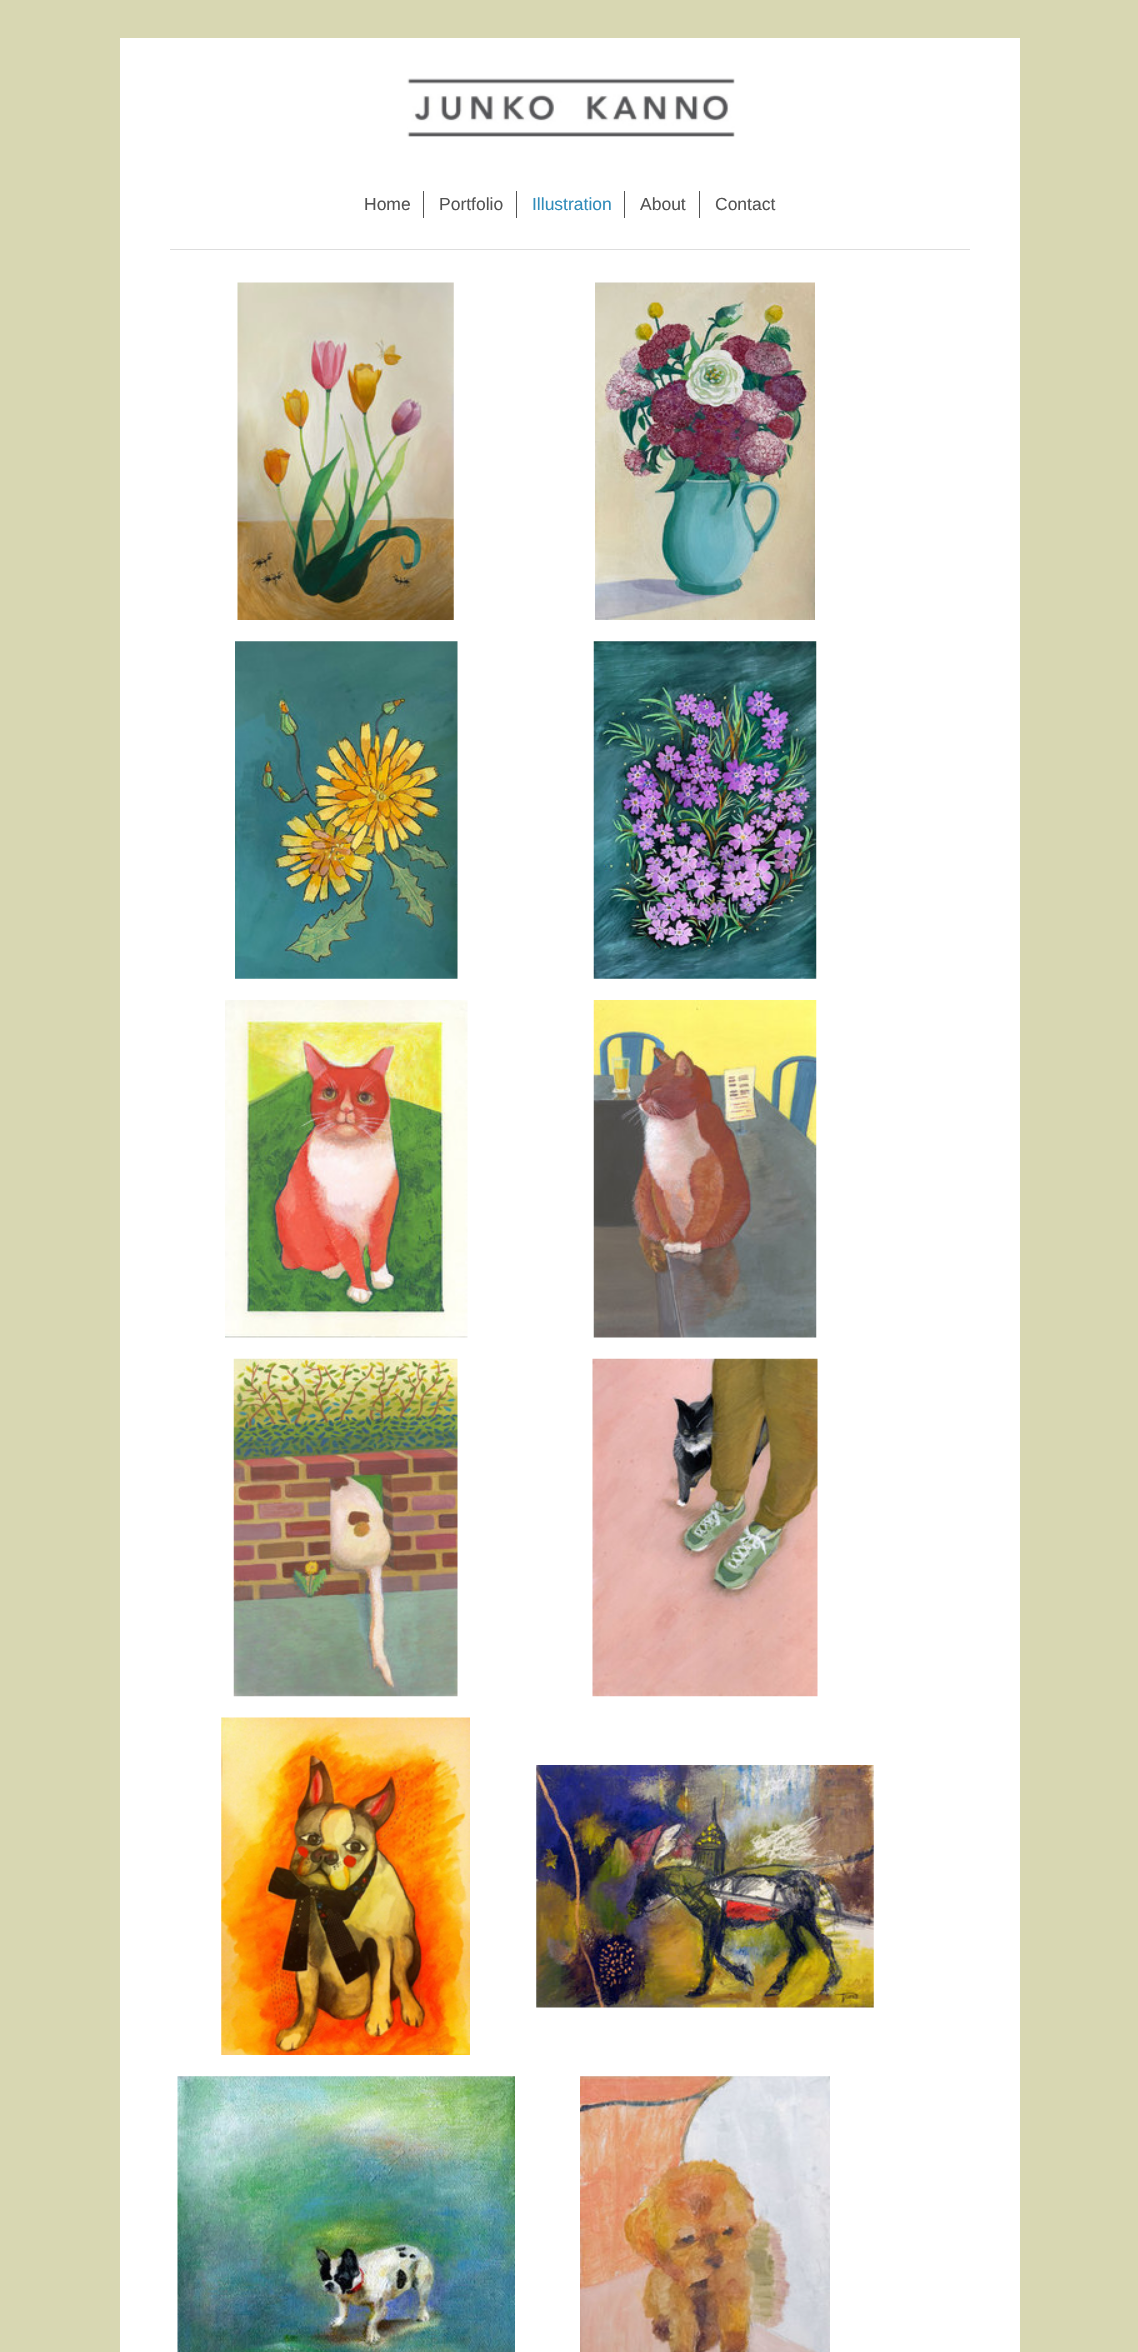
void draw(SkCanvas* c) {
SkPaint p;
p.setAntiAlias(true);
auto F=[&](const char* family, int weight, float size, bool italic = false){SkFontStyle style(weight, SkFontStyle::kNormal_Width,italic ? SkFontStyle::kItalic_Slant : SkFontStyle::kUpright_Slant);SkFont result(fontMgr->matchFamilyStyle(family, style), size);result.setSubpixel(true);return result;};
auto T=[&](const char* s, float x, float y, const SkFont& font){c->drawString(s, x, y, font, p);};
auto R=[&](float x, float y, float w, float h){c->drawRect(SkRect::MakeXYWH(x, y, w, h), p);};
auto I=[&](const char* path, float x, float y, float w, float h){auto image = SkImages::DeferredFromEncodedData(SkData::MakeFromFileName(path));c->drawImageRect(image, SkRect::MakeXYWH(x, y, w, h), SkSamplingOptions());};
c->clear(0xffd8d7b2);
p.setColor(0xffffffff);
R(120,38,900,2314);
I("1.png",407,78,328,59);
p.setColor(0xffdddddd);
R(170,249,800,1);
p.setColor(0xff535353);
R(423,191,1,27);
auto f1 = F("Liberation Sans",400,17.5);
T("Home",364,210,f1);
R(516,191,1,27);
T("Portfolio",439,210,f1);
R(624,191,1,27);
p.setColor(0xff308cba);
T("Illustration",532,210,f1);
p.setColor(0xff535353);
R(699,191,1,27);
T("About",640,210,f1);
T("Contact",715,210,f1);
I("2.png",237,282,217,338);
I("3.png",595,282,220,338);
I("4.png",235,641,223,338);
I("5.png",593,641,224,338);
I("6.png",225,1000,243,338);
I("7.png",593,1000,224,338);
I("8.png",233,1358,225,339);
I("9.png",592,1358,226,339);
I("10.png",221,1717,249,338);
I("11.png",536,1765,338,243);
I("12.png",177,2076,338,276);
I("13.png",580,2076,250,276);
}
